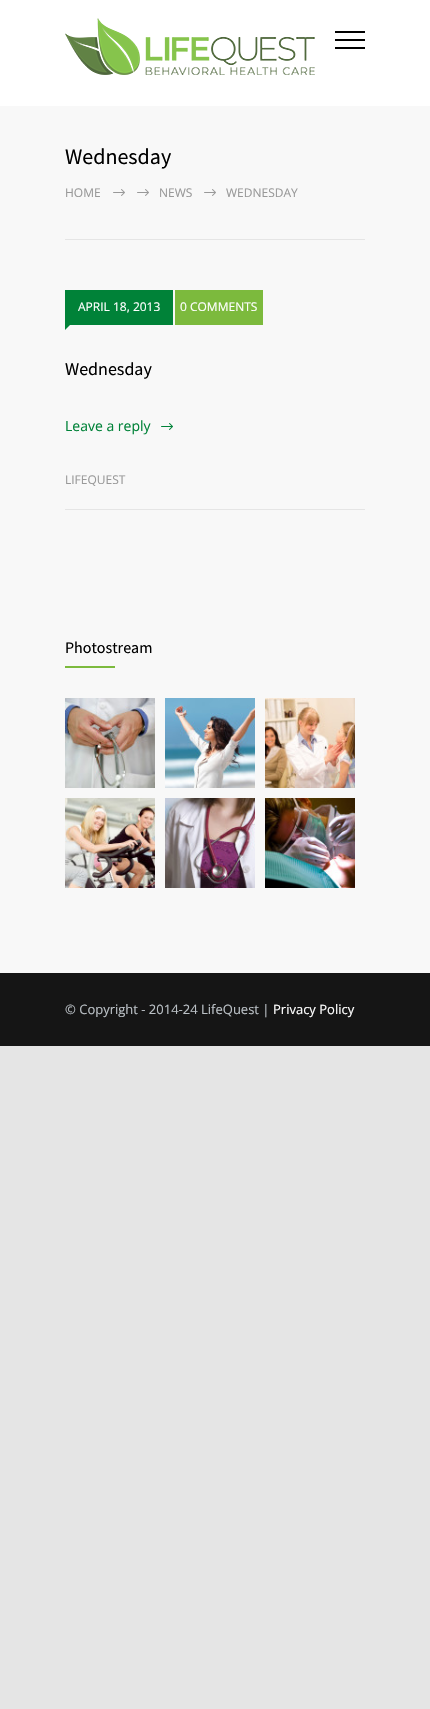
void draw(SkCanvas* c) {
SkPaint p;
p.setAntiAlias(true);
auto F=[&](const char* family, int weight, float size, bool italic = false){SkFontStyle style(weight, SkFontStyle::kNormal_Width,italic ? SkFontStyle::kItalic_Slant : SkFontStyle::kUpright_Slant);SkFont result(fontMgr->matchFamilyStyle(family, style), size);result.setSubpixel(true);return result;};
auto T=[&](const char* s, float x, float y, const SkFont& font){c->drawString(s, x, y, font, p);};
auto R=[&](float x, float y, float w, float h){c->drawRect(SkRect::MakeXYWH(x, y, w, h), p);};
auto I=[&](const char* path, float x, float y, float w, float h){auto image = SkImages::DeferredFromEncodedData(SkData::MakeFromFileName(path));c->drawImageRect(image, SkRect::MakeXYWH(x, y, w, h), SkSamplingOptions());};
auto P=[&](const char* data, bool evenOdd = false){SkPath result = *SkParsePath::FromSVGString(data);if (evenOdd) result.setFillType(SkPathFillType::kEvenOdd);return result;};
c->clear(0xffe5e5e5);
p.setColor(0xfff8f8f8);
R(0,106,430,867);
p.setColor(0xffffffff);
R(0,0,430,106);
I("1.png",65,18,250,57);
p.setColor(0xff000000);
R(335,31,30,2);
R(335,39,30,2);
R(335,47,30,2);
p.setColor(0xffe5e5e5);
R(65,239,300,1);
auto f1 = F("Source Sans Pro",400,22);
p.setColor(0xff000000);
T("Wednesday",65,164,f1);
auto f2 = F("Open Sans",400,12);
p.setColor(0xff999999);
T("HOME",65,197,f2);
I("2.png",113,189,12,7);
I("2.png",137,189,12,7);
T("NEWS",159,197,f2);
I("2.png",204,189,12,7);
T("WEDNESDAY",226,197,f2);
p.setColor(0xff008238);
R(65,290,108,35);
p.setColor(0xffffffff);
T("APRIL 18, 2013",78,311,f2);
p.setColor(0xff008238);
c->drawPath(P("M65 325h5l-5 5z"),p);
p.setColor(0xff7cba3d);
R(175,290,88,35);
p.setColor(0xffffffff);
T("0 COMMENTS",180,311,f2);
p.setColor(0xffe5e5e5);
R(65,509,300,1);
auto f3 = F("Source Sans Pro",400,18);
p.setColor(0xff000000);
T("Wednesday",65,375,f3);
auto f4 = F("Open Sans",400,14);
p.setColor(0xff008238);
T("Leave a reply",65,431,f4);
I("3.png",161,423,12,7);
p.setColor(0xff999999);
T("LIFEQUEST",65,484,f2);
auto f5 = F("Source Sans Pro",400,16);
p.setColor(0xff000000);
T("Photostream",65,653,f5);
p.setColor(0xff7cba3d);
R(65,666,50,2);
I("4.png",65,698,90,90);
I("5.png",165,698,90,90);
I("6.png",265,698,90,90);
I("7.png",65,798,90,90);
I("8.png",165,798,90,90);
I("9.png",265,798,90,90);
p.setColor(0xff151515);
R(0,973,430,73);
auto f6 = F("Open Sans",400,13);
p.setColor(0xffbac0c5);
T("© Copyright - 2014-24 LifeQuest |",65,1014,f6);
p.setColor(0xffffffff);
T("Privacy Policy",273,1014,f6);
}
